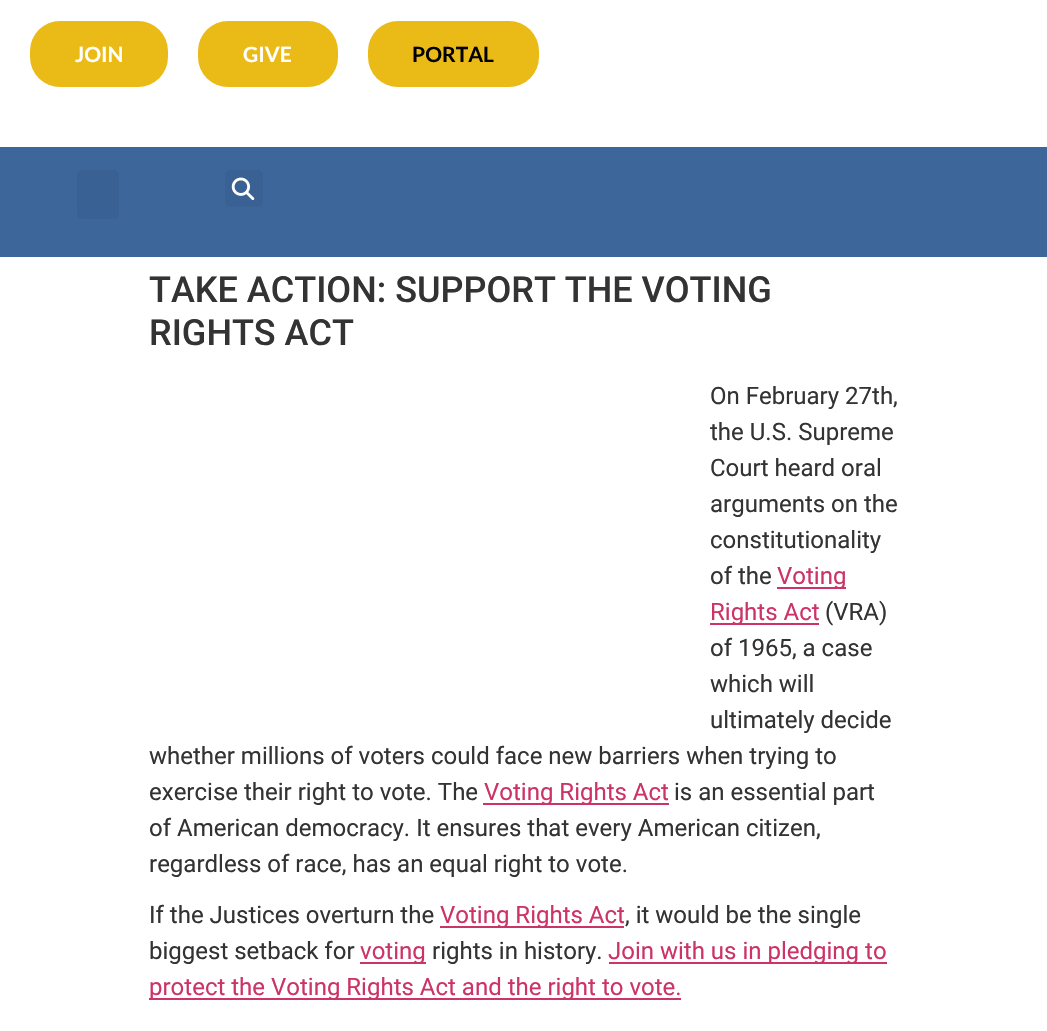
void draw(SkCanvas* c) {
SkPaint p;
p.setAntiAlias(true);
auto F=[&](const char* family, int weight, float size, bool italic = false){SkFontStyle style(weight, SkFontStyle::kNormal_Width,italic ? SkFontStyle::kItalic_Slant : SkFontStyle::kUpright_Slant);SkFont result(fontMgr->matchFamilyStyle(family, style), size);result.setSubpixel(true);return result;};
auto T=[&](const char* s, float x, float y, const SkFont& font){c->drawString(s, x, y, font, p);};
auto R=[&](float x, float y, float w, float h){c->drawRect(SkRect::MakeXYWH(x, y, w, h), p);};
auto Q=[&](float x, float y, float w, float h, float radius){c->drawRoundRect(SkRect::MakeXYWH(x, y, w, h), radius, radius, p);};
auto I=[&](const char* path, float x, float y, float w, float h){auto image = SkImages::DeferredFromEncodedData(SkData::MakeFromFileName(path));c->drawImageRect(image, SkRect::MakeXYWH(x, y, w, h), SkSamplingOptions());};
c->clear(0xffffffff);
p.setColor(0xffeaba16);
Q(30,21,138,66,30);
auto f1 = F("Lato",700,21);
p.setColor(0xffffffff);
T("JOIN",75,62,f1);
p.setColor(0xffeaba16);
Q(198,21,140,66,30);
p.setColor(0xffffffff);
T("GIVE",243,62,f1);
p.setColor(0xffeaba16);
Q(368,21,171,66,30);
p.setColor(0xff020101);
T("PORTAL",412,62,f1);
p.setColor(0xff3d669b);
R(0,147,1047,110);
p.setColor(0xff3a6193);
Q(77,170,42,49,5);
Q(225,170,38,37,5);
I("1.png",231,177,24,23);
auto f2 = F("Roboto",500,36);
p.setColor(0xff333333);
T("TAKE ACTION: SUPPORT THE VOTING",149,302,f2);
T("RIGHTS ACT",149,345,f2);
auto f3 = F("Roboto",400,24);
T("On February 27th,",710,404,f3);
T("the U.S. Supreme",710,440,f3);
T("Court heard oral",710,476,f3);
T("arguments on the",710,512,f3);
T("constitutionality",710,548,f3);
T("of the",710,584,f3);
p.setColor(0xffcc3366);
R(777,587,69,2);
T("Voting",777,584,f3);
R(710,623,109,2);
T("Rights Act",710,620,f3);
p.setColor(0xff333333);
T("(VRA)",825,620,f3);
T("of 1965, a case",710,656,f3);
T("which will",710,692,f3);
T("ultimately decide",710,728,f3);
T("whether millions of voters could face new barriers when trying to",149,764,f3);
T("exercise their right to vote. The",149,800,f3);
p.setColor(0xffcc3366);
R(483,803,186,2);
T("Voting Rights Act",484,800,f3);
p.setColor(0xff333333);
T("is an essential part",674,800,f3);
T("of American democracy. It ensures that every American citizen,",149,836,f3);
T("regardless of race, has an equal right to vote.",149,872,f3);
T("If the Justices overturn the",149,923,f3);
p.setColor(0xffcc3366);
R(440,926,184,2);
T("Voting Rights Act",440,923,f3);
p.setColor(0xff333333);
T(", it would be the single",625,923,f3);
T("biggest setback for",149,959,f3);
p.setColor(0xffcc3366);
R(360,962,66,2);
T("voting",360,959,f3);
p.setColor(0xff333333);
T("rights in history.",432,959,f3);
p.setColor(0xffcc3366);
R(609,962,278,2);
T("Join with us in pledging to",608,959,f3);
R(149,998,532,2);
T("protect the Voting Rights Act and the right to vote.",149,995,f3);
}
